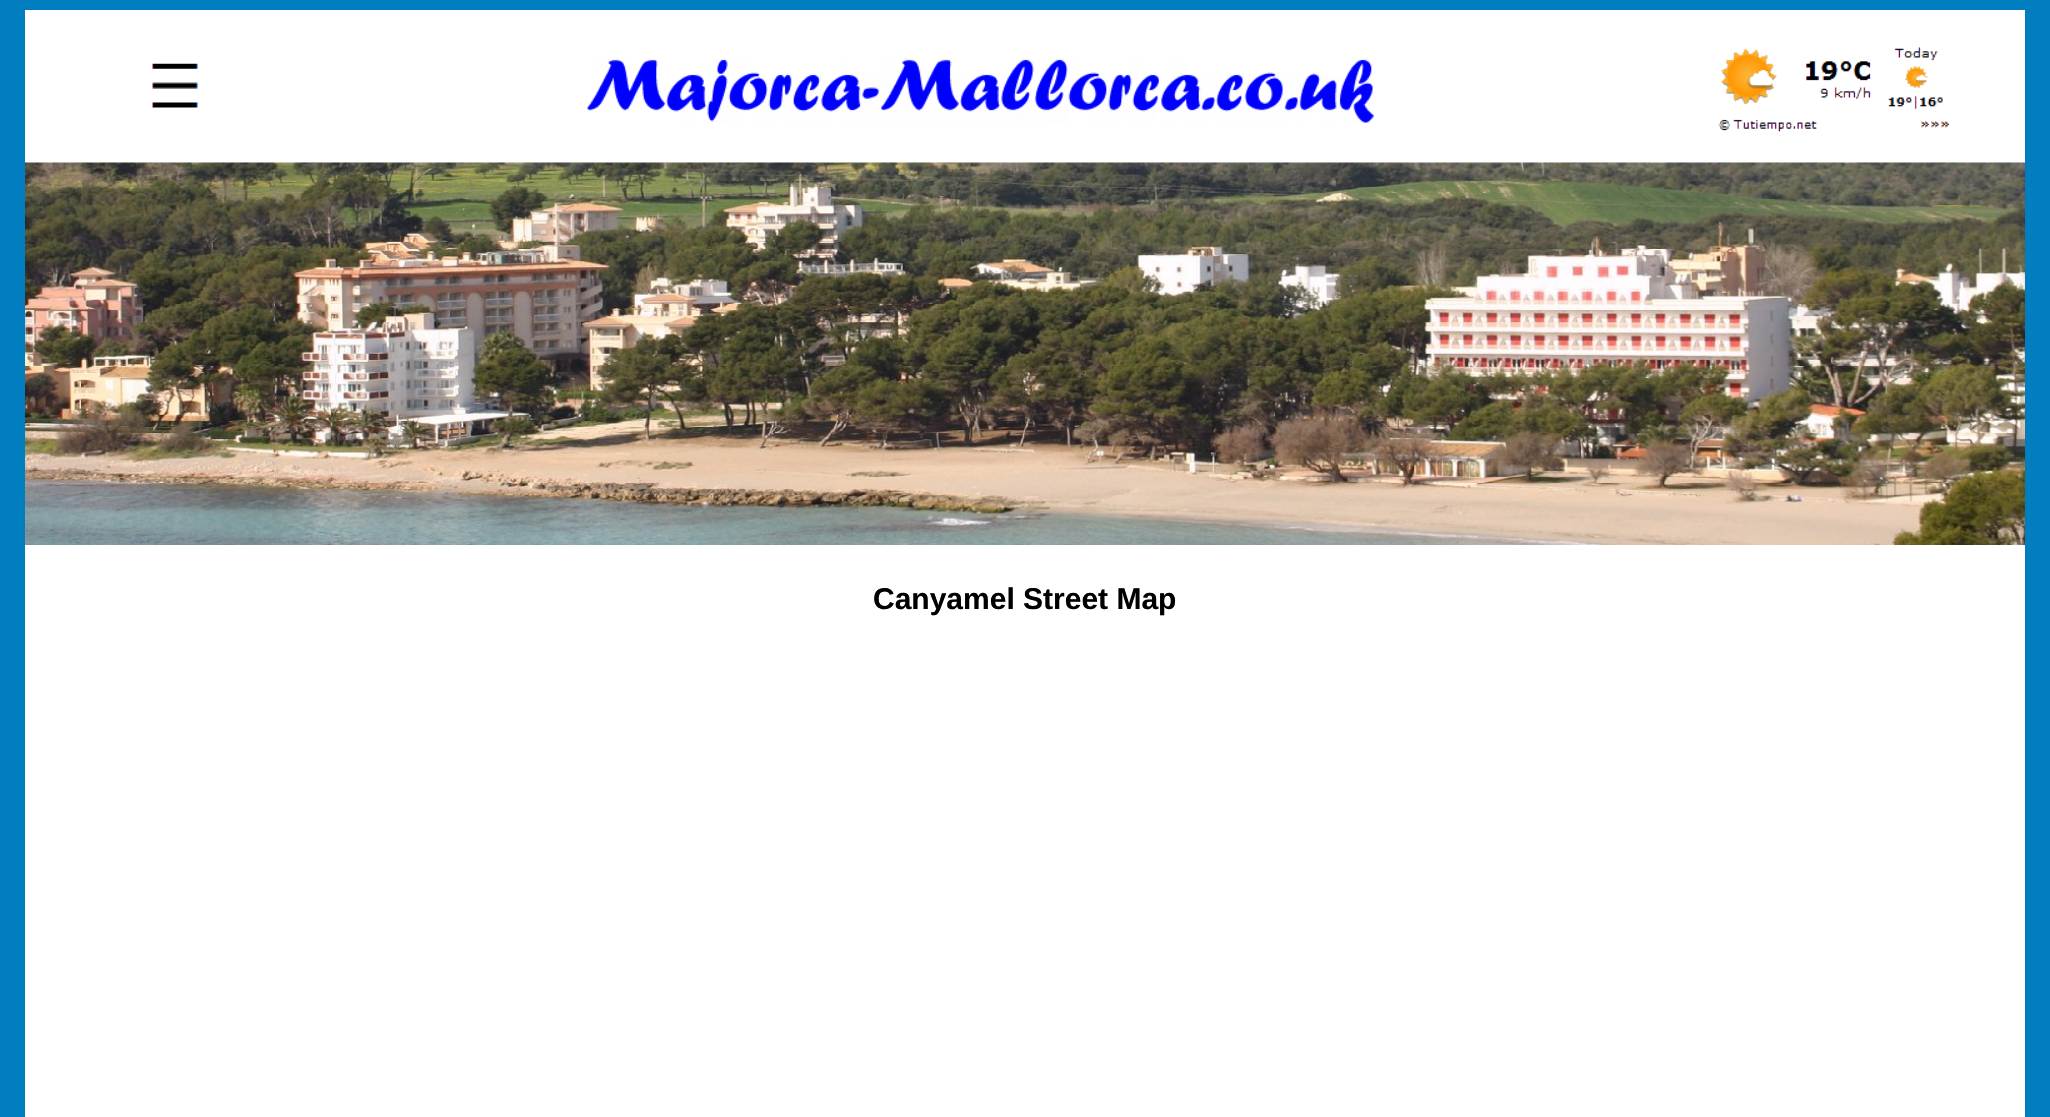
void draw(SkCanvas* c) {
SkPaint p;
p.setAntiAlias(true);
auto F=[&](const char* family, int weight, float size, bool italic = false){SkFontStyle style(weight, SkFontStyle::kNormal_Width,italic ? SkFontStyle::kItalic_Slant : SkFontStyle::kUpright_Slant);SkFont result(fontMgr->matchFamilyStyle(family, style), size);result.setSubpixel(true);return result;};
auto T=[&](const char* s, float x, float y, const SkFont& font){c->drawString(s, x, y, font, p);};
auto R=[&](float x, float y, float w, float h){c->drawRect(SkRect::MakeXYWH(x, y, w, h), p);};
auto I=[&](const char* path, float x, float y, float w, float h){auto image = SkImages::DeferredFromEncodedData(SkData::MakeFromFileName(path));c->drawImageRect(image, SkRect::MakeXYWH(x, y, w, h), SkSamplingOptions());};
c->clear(0xff017ec0);
p.setColor(0xffffffff);
R(25,10,2000,153);
I("1.png",152,63,46,45);
I("2.png",587,59,787,64);
I("3.png",1718,47,231,85);
I("4.png",25,162,2000,383);
R(25,545,2000,572);
auto f1 = F("Liberation Sans",700,30);
p.setColor(0xff000000);
T("Canyamel Street Map",873,609,f1);
}
